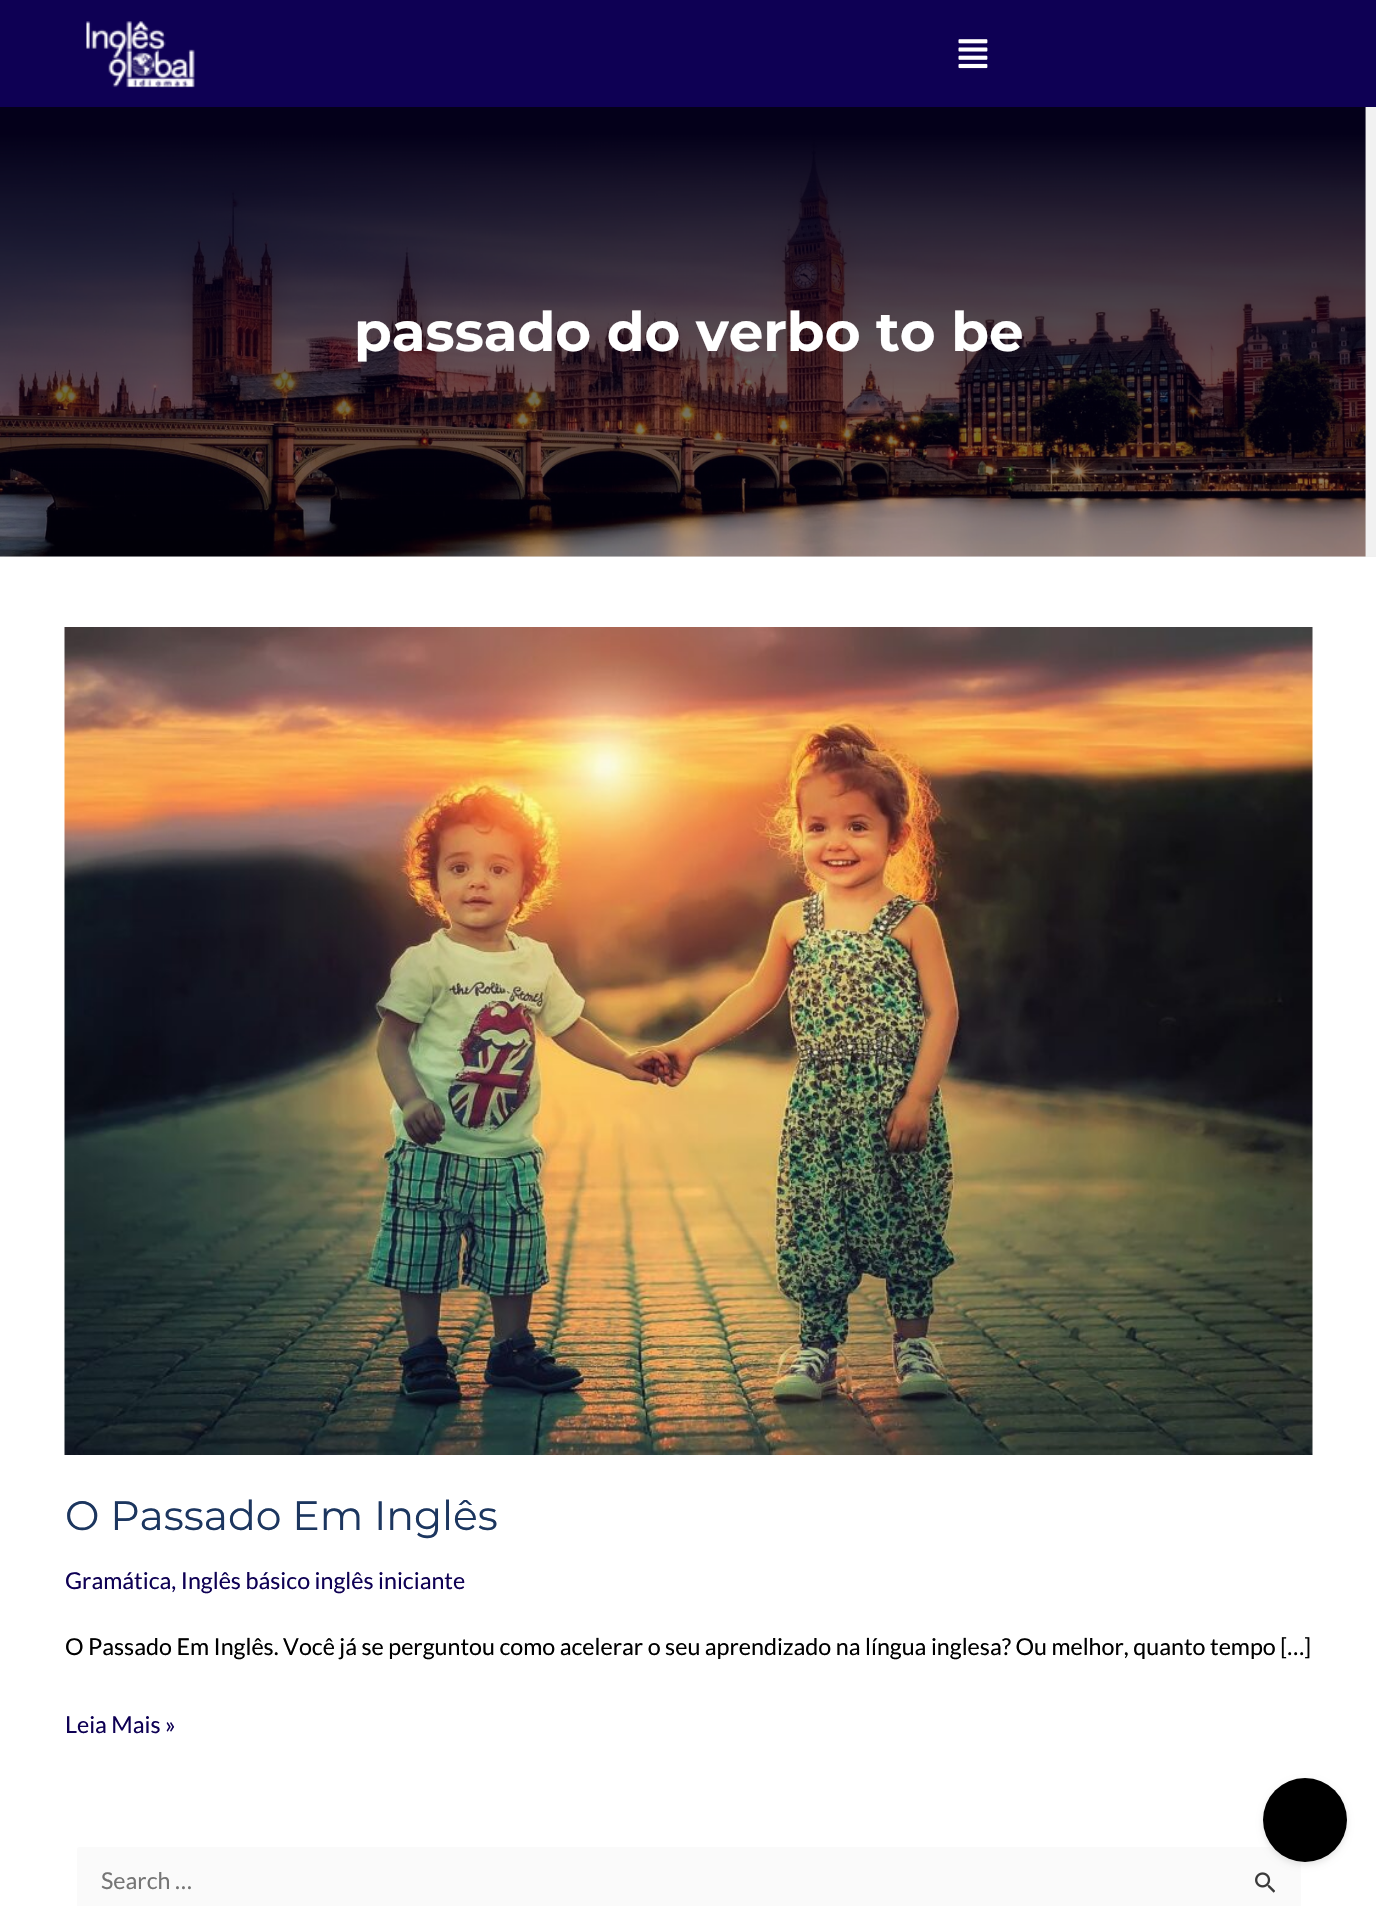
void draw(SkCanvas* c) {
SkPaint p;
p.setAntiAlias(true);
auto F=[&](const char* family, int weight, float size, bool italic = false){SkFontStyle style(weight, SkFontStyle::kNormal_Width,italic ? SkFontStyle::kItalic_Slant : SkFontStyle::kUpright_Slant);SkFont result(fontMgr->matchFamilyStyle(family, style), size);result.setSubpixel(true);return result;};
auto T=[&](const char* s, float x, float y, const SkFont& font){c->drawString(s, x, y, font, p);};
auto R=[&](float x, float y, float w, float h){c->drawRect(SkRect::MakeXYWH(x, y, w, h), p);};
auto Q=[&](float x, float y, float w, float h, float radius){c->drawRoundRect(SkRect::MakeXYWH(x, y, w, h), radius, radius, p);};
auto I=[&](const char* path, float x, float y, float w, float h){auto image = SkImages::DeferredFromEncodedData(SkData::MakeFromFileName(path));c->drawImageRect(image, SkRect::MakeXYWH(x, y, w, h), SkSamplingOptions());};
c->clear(0xffffffff);
p.setColor(0xff0e0054);
R(0,0,1376,107);
I("1.png",86,21,109,67);
I("2.png",958,39,30,30);
p.setColor(0xffeeeeee);
R(0,556,1376,1);
I("3.png",0,107,1376,450);
auto f1 = F("Montserrat",700,54.75);
p.setColor(0xffffffff);
T("passado do verbo to be",354,351,f1);
I("4.png",64,627,1249,828);
auto f2 = F("Montserrat",400,41);
p.setColor(0xff1c365f);
T("O Passado Em Inglês",65,1530,f2);
auto f3 = F("Lato",400,23.25);
p.setColor(0xff0e0054);
T("Gramática, Inglês básico inglês iniciante",65,1589,f3);
p.setColor(0xff000000);
T("O Passado Em Inglês. Você já se perguntou como acelerar o seu aprendizado na língua inglesa? Ou melhor, quanto tempo […]",65,1655,f3);
p.setColor(0xff0e0054);
T("Leia Mais »",65,1733,f3);
p.setColor(0xfffafafa);
Q(77,1847,1224,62,3);
p.setColor(0xff757575);
T("Search …",101,1889,f3);
I("5.png",1255,1872,20,21);
p.setColor(0x1a000000);
p.setMaskFilter(SkMaskFilter::MakeBlur(kNormal_SkBlurStyle, 3));
c->drawRoundRect(SkRect::MakeXYWH(1263,1781,84,84),42,42,p);
p.setMaskFilter(nullptr);
p.setColor(0xff000000);
c->drawCircle(1305,1820,42,p);
}
